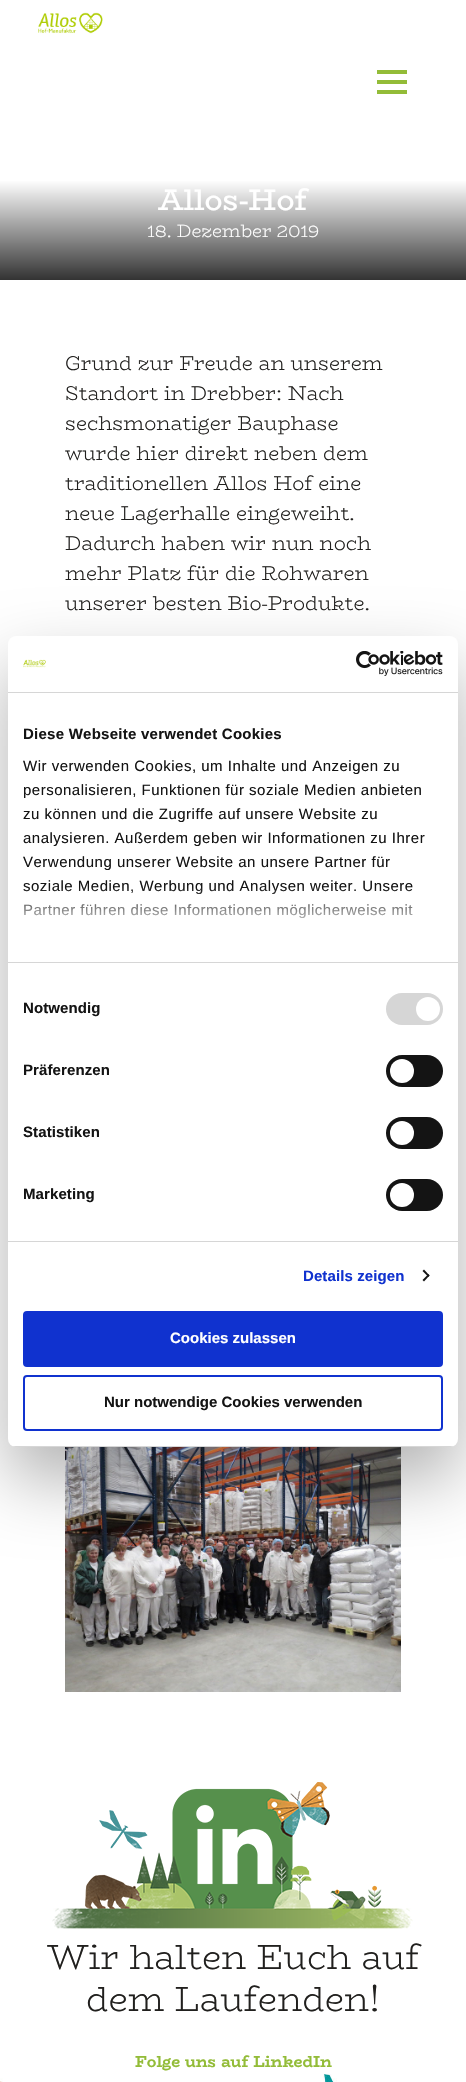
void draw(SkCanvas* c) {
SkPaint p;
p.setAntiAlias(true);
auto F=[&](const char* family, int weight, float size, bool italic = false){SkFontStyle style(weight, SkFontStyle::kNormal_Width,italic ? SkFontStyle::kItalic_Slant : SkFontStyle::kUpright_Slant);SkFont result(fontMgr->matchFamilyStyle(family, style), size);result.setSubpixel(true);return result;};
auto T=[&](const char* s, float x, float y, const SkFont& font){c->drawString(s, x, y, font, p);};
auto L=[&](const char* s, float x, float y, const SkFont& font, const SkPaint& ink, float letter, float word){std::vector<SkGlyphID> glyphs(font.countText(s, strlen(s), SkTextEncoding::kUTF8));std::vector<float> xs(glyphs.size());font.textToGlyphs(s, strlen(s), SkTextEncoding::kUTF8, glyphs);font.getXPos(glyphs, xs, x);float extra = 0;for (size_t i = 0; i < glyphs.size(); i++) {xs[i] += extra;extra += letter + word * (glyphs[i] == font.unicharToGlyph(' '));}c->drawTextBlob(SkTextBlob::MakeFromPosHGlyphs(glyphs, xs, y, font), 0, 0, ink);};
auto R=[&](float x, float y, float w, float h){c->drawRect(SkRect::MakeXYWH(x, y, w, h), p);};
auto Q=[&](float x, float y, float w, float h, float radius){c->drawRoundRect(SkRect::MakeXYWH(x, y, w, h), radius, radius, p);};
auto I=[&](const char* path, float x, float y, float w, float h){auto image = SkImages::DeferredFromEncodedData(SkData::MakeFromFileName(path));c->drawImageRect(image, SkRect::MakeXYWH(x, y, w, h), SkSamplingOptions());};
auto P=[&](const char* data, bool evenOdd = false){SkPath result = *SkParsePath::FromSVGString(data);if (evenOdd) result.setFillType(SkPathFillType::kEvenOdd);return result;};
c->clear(0xffffffff);
I("1.png",38,12,65,22);
p.setColor(0xff93bc38);
R(377,70,30,4);
R(377,80,30,4);
R(377,90,30,4);
{
const SkColor colors[] = {0xff333333,0xffffffff};
const float stops[] = {0,1};
const SkPoint ends[] = {{233,280}, {233,180}};
p.setShader(SkGradientShader::MakeLinear(ends, colors, stops, 2, SkTileMode::kClamp));
p.setAlpha(255);
}
R(0,181,466,99);
auto f1 = F("BioRhyme",400,30);
p.setShader(nullptr);
p.setColor(0xffffffff);
T("Allos-Hof",158,210,f1);
auto f2 = F("BioRhyme",300,18);
T("18. Dezember 2019",147,237,f2);
auto f3 = F("BioRhyme",300,20);
p.setColor(0xff21201e);
T("Grund zur Freude an unserem",65,370,f3);
T("Standort in Drebber: Nach",65,400,f3);
T("sechsmonatiger Bauphase",65,430,f3);
T("wurde hier direkt neben dem",65,460,f3);
T("traditionellen Allos Hof eine",65,490,f3);
T("neue Lagerhalle eingeweiht.",65,520,f3);
T("Dadurch haben wir nun noch",65,550,f3);
T("mehr Platz für die Rohwaren",65,580,f3);
T("unserer besten Bio-Produkte.",65,610,f3);
I("2.png",65,1447,336,245);
I("3.png",52,1782,361,147);
auto f4 = F("BioRhyme",300,35);
T("Wir halten Euch auf",47,1969,f4);
T("dem Laufenden!",86,2011,f4);
auto f5 = F("BioRhyme",700,16);
p.setColor(0xff93bc38);
T("Folge uns auf LinkedIn",135,2067,f5);
I("4.png",0,2074,337,8);
p.setColor(0x4d000000);
p.setMaskFilter(SkMaskFilter::MakeBlur(kNormal_SkBlurStyle, 34));
c->drawRoundRect(SkRect::MakeXYWH(8,668,450,811),8,8,p);
p.setMaskFilter(nullptr);
p.setColor(0xffffffff);
Q(8,636,450,811,8);
p.setColor(0xffd6d6d6);
R(8,692,450,1);
I("5.png",23,659,23,9);
I("6.png",356,651,87,25);
R(8,962,450,1);
auto f6 = F("Liberation Sans",700,15);
p.setColor(0xff141414);
L("Diese Webseite verwendet Cookies",23,739,f6,p,.25,0);
auto f7 = F("Liberation Sans",400,15);
L("Wir verwenden Cookies, um Inhalte und Anzeigen zu",23,771,f7,p,.5,0);
L("personalisieren, Funktionen für soziale Medien anbieten",23,795,f7,p,.5,0);
L("zu können und die Zugriffe auf unsere Website zu",23,819,f7,p,.5,0);
L("analysieren. Außerdem geben wir Informationen zu Ihrer",23,843,f7,p,.5,0);
L("Verwendung unserer Website an unsere Partner für",23,867,f7,p,.5,0);
L("soziale Medien, Werbung und Analysen weiter. Unsere",23,891,f7,p,.5,0);
L("Partner führen diese Informationen möglicherweise mit",23,915,f7,p,.5,0);
{
const SkColor colors[] = {0xffffffff,0xccffffff,0x00ffffff};
const float stops[] = {0,.5,1};
const SkPoint ends[] = {{227,962}, {227,887}};
p.setShader(SkGradientShader::MakeLinear(ends, colors, stops, 3, SkTileMode::kClamp));
p.setAlpha(255);
}
R(23,888,390,31);
p.setShader(nullptr);
p.setColor(0xffd6d6d6);
R(8,1241,450,1);
p.setColor(0xff141414);
L("Notwendig",23,1013,f6,p,.1,0);
p.setColor(0xffd6d6d6);
Q(386,993,57,32,16);
p.setColor(0xffffffff);
c->drawCircle(428,1009,12,p);
p.setColor(0xff141414);
L("Präferenzen",23,1075,f6,p,.1,0);
Q(386,1055,57,32,16);
p.setColor(0xffffffff);
c->drawCircle(402,1071,12,p);
p.setColor(0xff141414);
L("Statistiken",23,1137,f6,p,.1,0);
Q(386,1117,57,32,16);
p.setColor(0xffffffff);
c->drawCircle(402,1133,12,p);
p.setColor(0xff141414);
L("Marketing",23,1199,f6,p,.1,0);
Q(386,1179,57,32,16);
p.setColor(0xffffffff);
c->drawCircle(402,1195,12,p);
p.setColor(0xff1032cf);
L("Details zeigen",303,1281,f6,p,.1,0);
p.setColor(0xff141414);
c->drawPath(P("M424 1269.5l5.5 6l-1 1.5l-6-6z"),p);
c->drawPath(P("M428.5 1274l1 1.5l-5.5 6l-1.5-1.5z"),p);
c->save();
c->clipPath(P("M16 636h434c4.5 0 8 3.5 8 8v795c0 4.5-3.5 8-8 8h-434c-4.5 0-8-3.5-8-8v-795c0-4.5 3.5-8 8-8z"),true);
p.setColor(0xffd6d6d6);
R(8,1446,450,1);
c->restore();
p.setColor(0xff1032cf);
c->drawRoundRect(SkRect::MakeXYWH(24,1312,418,54),3,3,p);
p.setStroke(true);
p.setStrokeWidth(2);
c->drawRoundRect(SkRect::MakeXYWH(24,1312,418,54),3,3,p);
p.setStroke(false);
p.setColor(0xffffffff);
T("Cookies zulassen",170,1343,f6);
p.setStroke(true);
p.setColor(0xff1032cf);
c->drawRoundRect(SkRect::MakeXYWH(24,1376,418,54),3,3,p);
p.setStroke(false);
p.setColor(0xff141414);
T("Nur notwendige Cookies verwenden",104,1407,f6);
}
